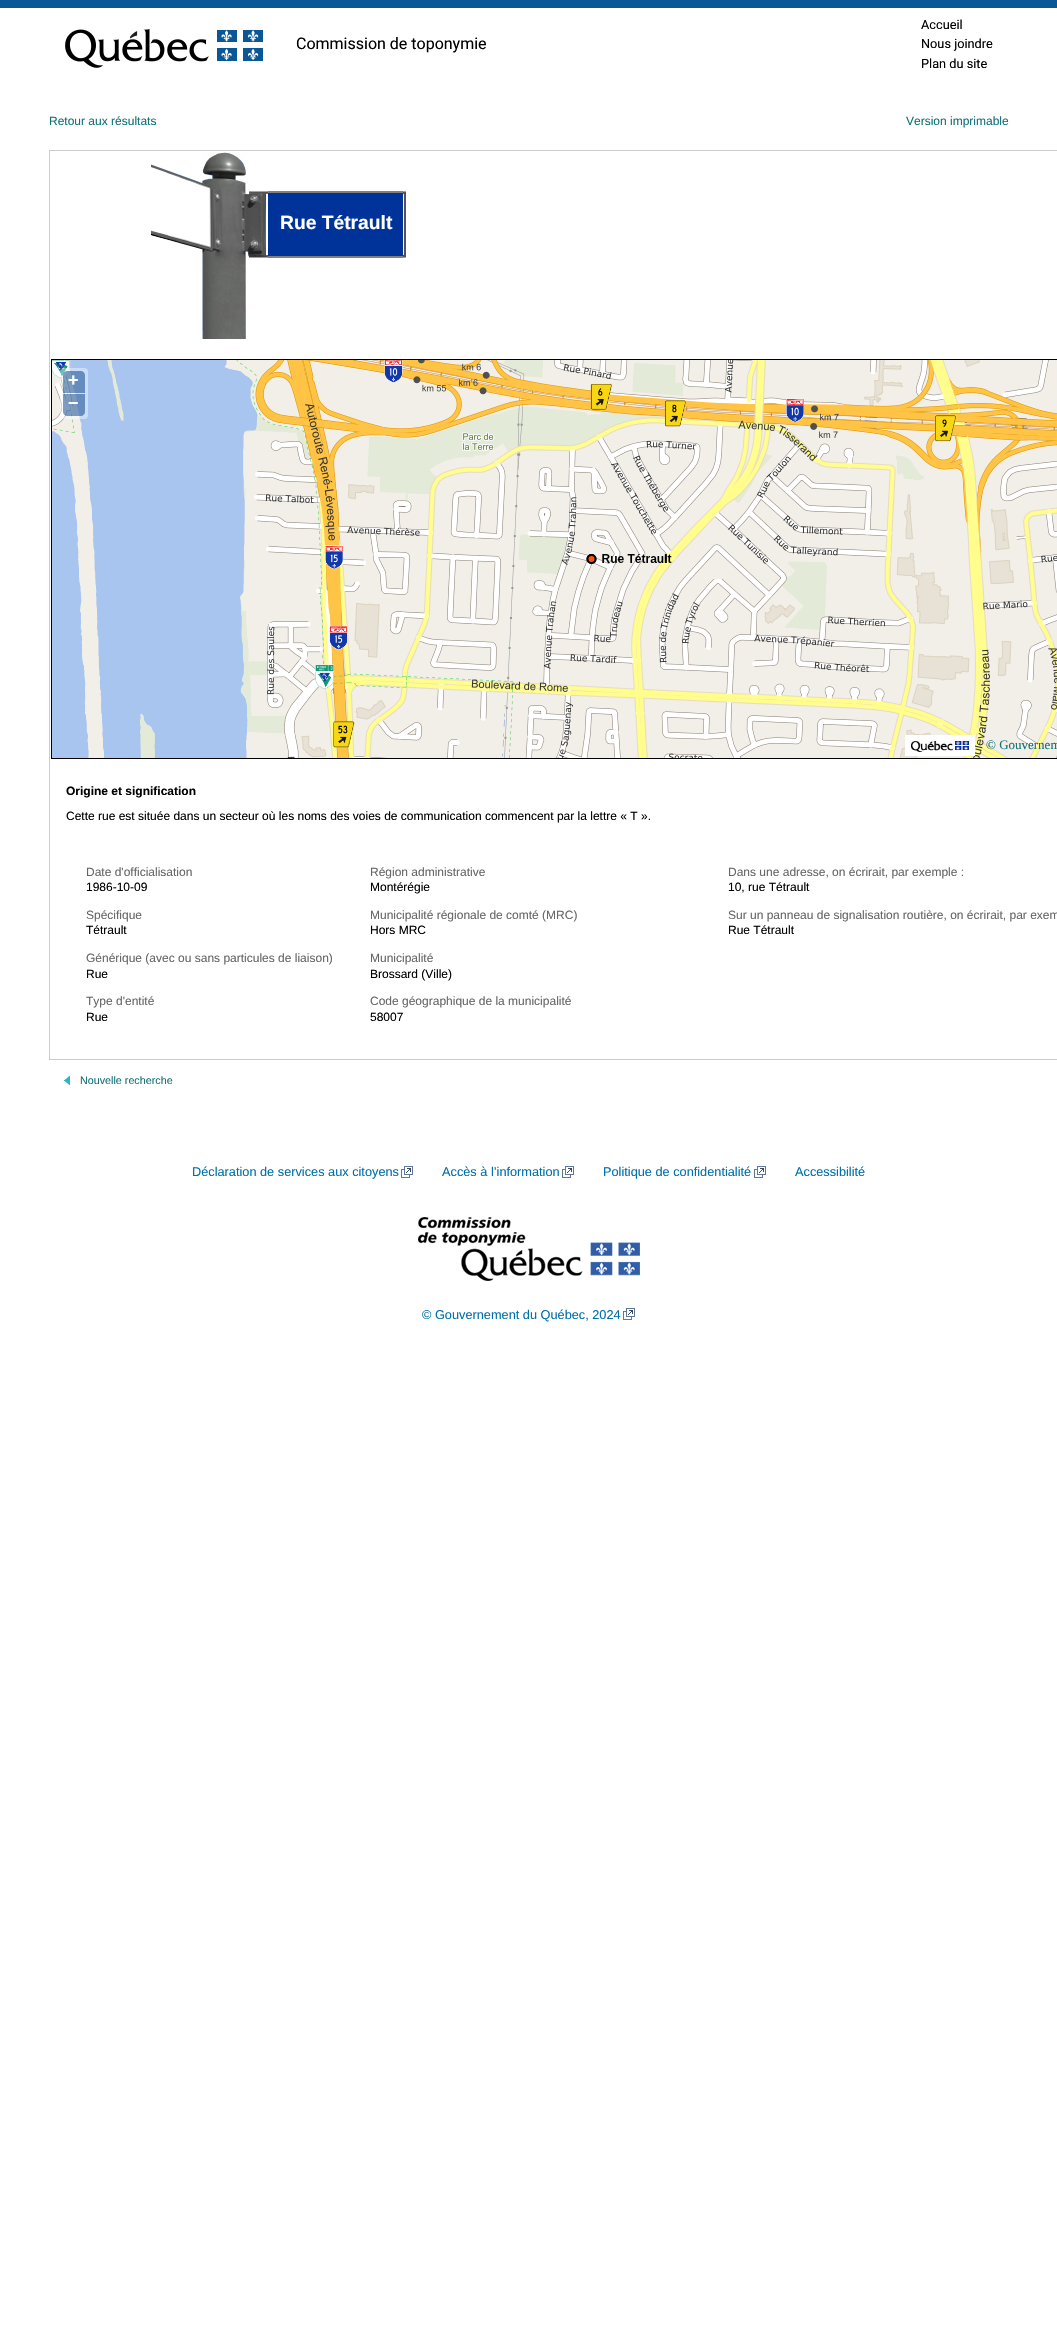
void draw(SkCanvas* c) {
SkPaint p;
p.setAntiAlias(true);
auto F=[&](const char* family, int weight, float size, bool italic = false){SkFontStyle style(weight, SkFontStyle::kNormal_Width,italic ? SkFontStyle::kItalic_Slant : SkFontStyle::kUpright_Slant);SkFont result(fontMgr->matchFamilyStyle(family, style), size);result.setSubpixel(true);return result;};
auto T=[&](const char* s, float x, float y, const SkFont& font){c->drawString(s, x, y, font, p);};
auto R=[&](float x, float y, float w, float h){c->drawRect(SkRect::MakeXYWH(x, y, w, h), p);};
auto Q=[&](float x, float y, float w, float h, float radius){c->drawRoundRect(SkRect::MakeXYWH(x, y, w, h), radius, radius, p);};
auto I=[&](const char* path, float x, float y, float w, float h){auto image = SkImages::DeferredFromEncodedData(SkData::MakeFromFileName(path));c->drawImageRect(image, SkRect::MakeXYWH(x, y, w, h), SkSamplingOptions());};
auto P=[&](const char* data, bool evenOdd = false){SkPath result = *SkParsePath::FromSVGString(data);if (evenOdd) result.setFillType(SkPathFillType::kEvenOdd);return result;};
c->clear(0xffffffff);
p.setColor(0xff095797);
R(0,0,1057,8);
I("1.png",65,28,198,40);
auto f1 = F("Roboto",400,16);
p.setColor(0xff000000);
T("Commission de toponymie",296,49,f1);
auto f2 = F("Roboto",400,12.75);
T("Accueil",921,29,f2);
T("Nous joindre",921,48,f2);
T("Plan du site",921,68,f2);
auto f3 = F("Liberation Sans",400,12);
p.setColor(0xff13717a);
T("Retour aux résultats",49,125,f3);
T("Version imprimable",906,125,f3);
p.setColor(0xffcccccc);
R(49,150,1008,1);
R(49,1059,1008,1);
R(49,150,1,910);
I("2.png",151,164,51,22);
I("3.png",202,152,44,39);
I("4.png",202,191,44,67);
I("5.png",246,191,21,67);
I("6.png",267,191,1,67);
p.setColor(0xff003399);
R(268,193,135,63);
p.setColor(0xff808080);
R(268,191,135,2);
R(268,256,135,2);
auto f4 = F("Liberation Sans",700,19.25);
p.setColor(0xffffffff);
T("Rue Tétrault",280,229,f4);
I("7.png",403,191,3,67);
I("8.png",151,230,51,20);
I("9.png",202,258,44,81);
p.setStroke(true);
p.setStrokeWidth(1);
p.setColor(0xff000000);
c->drawRect(SkRect::MakeXYWH(51.5,359.5,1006,399),p);
I("10.png",52,360,149,219);
p.setStroke(false);
p.setColor(0x66ffffff);
Q(60,368,28,51,4);
p.setColor(0x80003c88);
c->drawPath(P("M67 371h14c2 0 4 2 4 4v18h-22v-18c0-2 2-4 4-4z"),p);
auto f5 = F("Liberation Sans",700,18);
p.setColor(0xffffffff);
T("+",68,386,f5);
p.setColor(0x80003c88);
c->drawPath(P("M63 394h22v18c0 2-2 4-4 4h-14c-2 0-4-2-4-4z"),p);
p.setColor(0xffffffff);
T("−",68,409,f5);
I("11.png",201,360,256,219);
I("12.png",457,360,256,219);
I("13.png",713,360,256,219);
I("14.png",969,360,88,219);
I("15.png",52,579,149,179);
I("16.png",201,579,256,179);
I("17.png",457,579,256,179);
I("18.png",713,579,256,179);
I("19.png",969,579,88,179);
p.setColor(0xffff5500);
c->drawCircle(591.5,559,4,p);
p.setStroke(true);
p.setStrokeWidth(2);
p.setColor(0xff000000);
c->drawCircle(591.5,559,4,p);
auto f6 = F("Liberation Sans",700,12);
p.setStroke(false);
T("l",664,563,f6);
I("20.png",905,735,70,21);
auto f7 = F("Liberation Serif",400,13);
p.setColor(0xff13717a);
T("© Gouvernem",986,749,f7);
p.setColor(0xff000000);
T("Origine et signification",66,795,f6);
T("Cette rue est située dans un secteur où les noms des voies de communication commencent par la lettre « T ».",66,820,f3);
p.setColor(0xff666666);
T("Date d'officialisation",86,876,f3);
p.setColor(0xff000000);
T("1986-10-09",86,891,f3);
p.setColor(0xff666666);
T("Spécifique",86,919,f3);
p.setColor(0xff000000);
T("Tétrault",86,934,f3);
p.setColor(0xff666666);
T("Générique (avec ou sans particules de liaison)",86,962,f3);
p.setColor(0xff000000);
T("Rue",86,978,f3);
p.setColor(0xff666666);
T("Type d'entité",86,1005,f3);
p.setColor(0xff000000);
T("Rue",86,1021,f3);
p.setColor(0xff666666);
T("Région administrative",370,876,f3);
p.setColor(0xff000000);
T("Montérégie",370,891,f3);
p.setColor(0xff666666);
T("Municipalité régionale de comté (MRC)",370,919,f3);
p.setColor(0xff000000);
T("Hors MRC",370,934,f3);
p.setColor(0xff666666);
T("Municipalité",370,962,f3);
p.setColor(0xff000000);
T("Brossard (Ville)",370,978,f3);
p.setColor(0xff666666);
T("Code géographique de la municipalité",370,1005,f3);
p.setColor(0xff000000);
T("58007",370,1021,f3);
p.setColor(0xff666666);
T("Dans une adresse, on écrirait, par exemple :",728,876,f3);
p.setColor(0xff000000);
T("10, rue Tétrault",728,891,f3);
p.setColor(0xff666666);
T("Sur un panneau de signalisation routière, on écrirait, par exem",728,919,f3);
p.setColor(0xff000000);
T("Rue Tétrault",728,934,f3);
I("21.png",64,1076,6,9);
auto f8 = F("Liberation Sans",400,10.75);
p.setColor(0xff13717a);
T("Nouvelle recherche",80,1084,f8);
auto f9 = F("Liberation Sans",400,12.75);
p.setColor(0xff006fa9);
T("Déclaration de services aux citoyens",192,1176,f9);
I("22.png",401,1166,12,12);
T("Accès à l’information",442,1176,f9);
I("22.png",562,1166,12,12);
T("Politique de confidentialité",603,1176,f9);
I("22.png",754,1166,12,12);
T("Accessibilité",795,1176,f9);
I("23.png",418,1217,222,64);
T("© Gouvernement du Québec, 2024",422,1319,f9);
I("22.png",623,1308,12,12);
}
